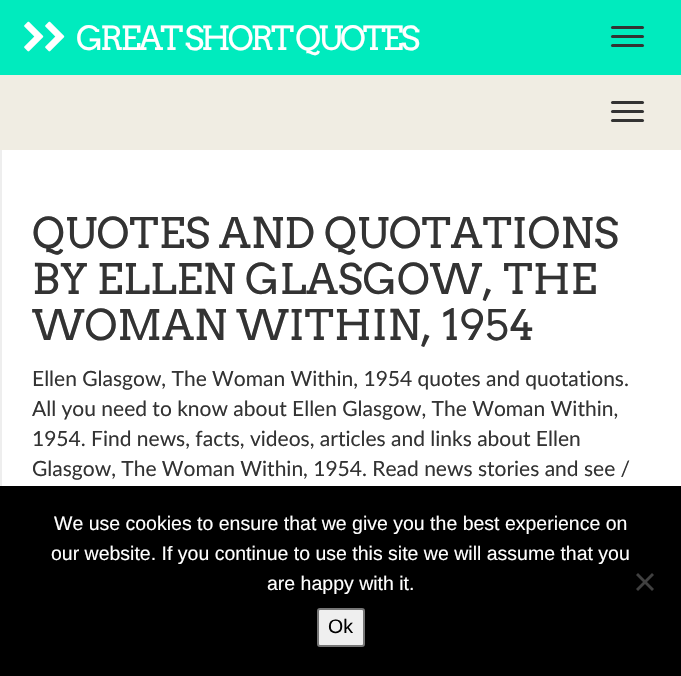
void draw(SkCanvas* c) {
SkPaint p;
p.setAntiAlias(true);
auto F=[&](const char* family, int weight, float size, bool italic = false){SkFontStyle style(weight, SkFontStyle::kNormal_Width,italic ? SkFontStyle::kItalic_Slant : SkFontStyle::kUpright_Slant);SkFont result(fontMgr->matchFamilyStyle(family, style), size);result.setSubpixel(true);return result;};
auto T=[&](const char* s, float x, float y, const SkFont& font){c->drawString(s, x, y, font, p);};
auto L=[&](const char* s, float x, float y, const SkFont& font, const SkPaint& ink, float letter, float word){std::vector<SkGlyphID> glyphs(font.countText(s, strlen(s), SkTextEncoding::kUTF8));std::vector<float> xs(glyphs.size());font.textToGlyphs(s, strlen(s), SkTextEncoding::kUTF8, glyphs);font.getXPos(glyphs, xs, x);float extra = 0;for (size_t i = 0; i < glyphs.size(); i++) {xs[i] += extra;extra += letter + word * (glyphs[i] == font.unicharToGlyph(' '));}c->drawTextBlob(SkTextBlob::MakeFromPosHGlyphs(glyphs, xs, y, font), 0, 0, ink);};
auto R=[&](float x, float y, float w, float h){c->drawRect(SkRect::MakeXYWH(x, y, w, h), p);};
auto Q=[&](float x, float y, float w, float h, float radius){c->drawRoundRect(SkRect::MakeXYWH(x, y, w, h), radius, radius, p);};
auto I=[&](const char* path, float x, float y, float w, float h){auto image = SkImages::DeferredFromEncodedData(SkData::MakeFromFileName(path));c->drawImageRect(image, SkRect::MakeXYWH(x, y, w, h), SkSamplingOptions());};
auto P=[&](const char* data, bool evenOdd = false){SkPath result = *SkParsePath::FromSVGString(data);if (evenOdd) result.setFillType(SkPathFillType::kEvenOdd);return result;};
c->clear(0xffffffff);
p.setColor(0xff00ebbe);
R(0,0,681,75);
I("1.png",24,21,20,31);
I("1.png",45,21,20,31);
auto f1 = F("Arvo",400,33);
p.setColor(0xffffffff);
L("GREAT SHORT QUOTES",76,50,f1,p,-3,0);
p.setColor(0xff333333);
Q(611,26,33,3,1.5);
Q(611,35,33,3,1.5);
Q(611,44,33,3,1.5);
p.setColor(0xfff0ede3);
R(0,75,681,75);
p.setColor(0xff333333);
Q(611,101,33,3,1.5);
Q(611,110,33,3,1.5);
Q(611,119,33,3,1.5);
p.setColor(0xffeeeeee);
R(0,150,2,336);
auto f2 = F("Arvo",400,42);
p.setColor(0xff333333);
T("QUOTES AND QUOTATIONS",32,248,f2);
T("BY ELLEN GLASGOW, THE",32,294,f2);
T("WOMAN WITHIN, 1954",32,340,f2);
auto f3 = F("Lato",400,21);
T("Ellen Glasgow, The Woman Within, 1954 quotes and quotations.",32,386,f3);
T("All you need to know about Ellen Glasgow, The Woman Within,",32,416,f3);
T("1954. Find news, facts, videos, articles and links about Ellen",32,446,f3);
T("Glasgow, The Woman Within, 1954. Read news stories and see /",32,476,f3);
p.setColor(0xff000000);
R(0,486,681,190);
auto f4 = F("Liberation Sans",400,19.5);
p.setColor(0xffffffff);
T("We use cookies to ensure that we give you the best experience on",54,530,f4);
T("our website. If you continue to use this site we will assume that you",51,560,f4);
T("are happy with it.",267,590,f4);
p.setColor(0xff404040);
c->drawPath(P("M652 573l2 2l-16 16l-2-2z"),p);
c->drawPath(P("M636 575l2-2l16 16l-2 2z"),p);
p.setColor(0xffefefef);
c->drawRoundRect(SkRect::MakeXYWH(318,609,46,37),2,2,p);
p.setStroke(true);
p.setStrokeWidth(2);
p.setColor(0xff767676);
c->drawRoundRect(SkRect::MakeXYWH(318,609,46,37),2,2,p);
p.setStroke(false);
p.setColor(0xff000000);
T("Ok",328,633,f4);
}
